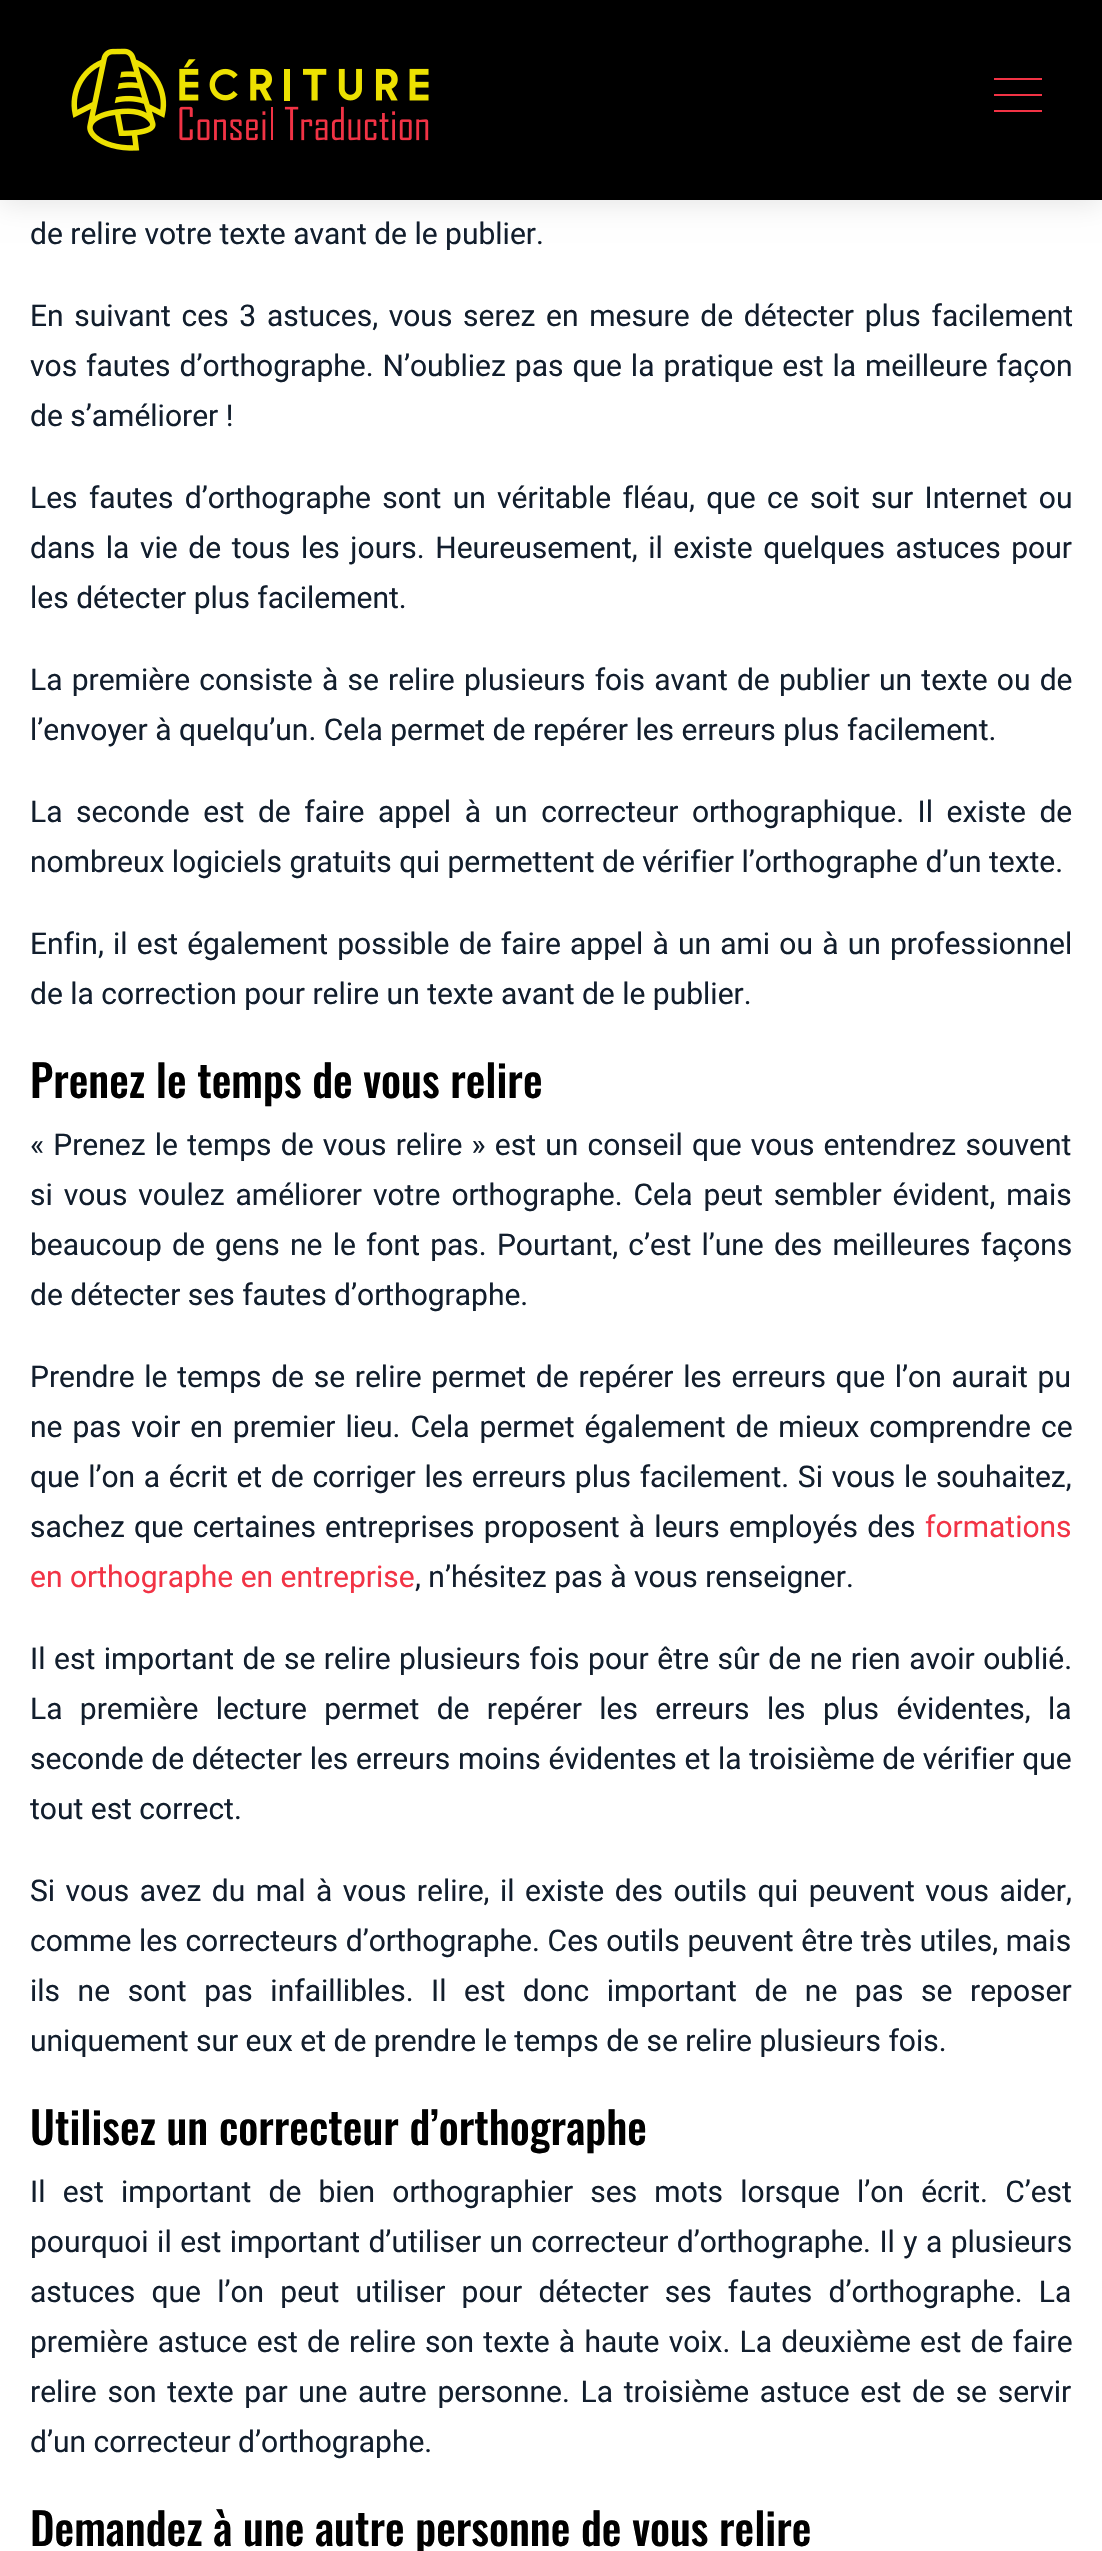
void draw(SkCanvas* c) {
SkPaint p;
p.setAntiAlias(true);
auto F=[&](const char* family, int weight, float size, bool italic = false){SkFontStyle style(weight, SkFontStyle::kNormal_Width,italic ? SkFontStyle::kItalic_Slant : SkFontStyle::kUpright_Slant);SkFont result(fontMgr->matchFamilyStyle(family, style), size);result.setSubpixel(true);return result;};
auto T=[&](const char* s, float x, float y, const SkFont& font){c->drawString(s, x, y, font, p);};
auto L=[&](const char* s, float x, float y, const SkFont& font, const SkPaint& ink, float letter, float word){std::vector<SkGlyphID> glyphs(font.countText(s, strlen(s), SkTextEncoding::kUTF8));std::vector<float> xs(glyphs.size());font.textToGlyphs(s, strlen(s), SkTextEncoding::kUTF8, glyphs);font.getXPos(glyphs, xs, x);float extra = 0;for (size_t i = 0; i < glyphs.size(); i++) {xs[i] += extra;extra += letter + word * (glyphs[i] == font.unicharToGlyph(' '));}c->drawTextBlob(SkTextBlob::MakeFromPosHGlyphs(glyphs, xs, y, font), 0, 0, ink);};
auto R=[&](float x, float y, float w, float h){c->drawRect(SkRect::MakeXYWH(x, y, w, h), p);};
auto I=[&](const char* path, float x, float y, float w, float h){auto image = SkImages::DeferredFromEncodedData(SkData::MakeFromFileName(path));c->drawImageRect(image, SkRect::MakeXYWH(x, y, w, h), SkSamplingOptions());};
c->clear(0xffffffff);
p.setColor(0x1a000000);
p.setMaskFilter(SkMaskFilter::MakeBlur(kNormal_SkBlurStyle, 13));
c->drawRect(SkRect::MakeXYWH(0,4,1102,200),p);
p.setMaskFilter(nullptr);
p.setColor(0xff000000);
R(0,0,1102,200);
I("1.png",71,48,358,103);
p.setColor(0xfff23345);
R(994,78,48,2);
R(994,94,48,2);
R(994,110,48,2);
auto f1 = F("Roboto",400,30);
p.setColor(0xff121e2d);
T("de relire votre texte avant de le publier.",30,244,f1);
L("En suivant ces 3 astuces, vous serez en mesure de détecter plus facilement",30,326,f1,p,0,3.25);
L("vos fautes d’orthographe. N’oubliez pas que la pratique est la meilleure façon",30,376,f1,p,0,1.5);
T("de s’améliorer !",30,426,f1);
L("Les fautes d’orthographe sont un véritable fléau, que ce soit sur Internet ou",30,508,f1,p,0,3.9);
L("dans la vie de tous les jours. Heureusement, il existe quelques astuces pour",30,558,f1,p,0,3.1);
T("les détecter plus facilement.",30,608,f1);
L("La première consiste à se relire plusieurs fois avant de publier un texte ou de",30,690,f1,p,0,1.75);
T("l’envoyer à quelqu’un. Cela permet de repérer les erreurs plus facilement.",30,740,f1);
L("La seconde est de faire appel à un correcteur orthographique. Il existe de",30,822,f1,p,0,6.1);
T("nombreux logiciels gratuits qui permettent de vérifier l’orthographe d’un texte.",30,872,f1);
L("Enfin, il est également possible de faire appel à un ami ou à un professionnel",30,954,f1,p,0,1.75);
T("de la correction pour relire un texte avant de le publier.",30,1004,f1);
auto f2 = F("Oswald",500,44);
p.setColor(0xff000000);
T("Prenez le temps de vous relire",30,1098,f2);
p.setColor(0xff121e2d);
L("« Prenez le temps de vous relire » est un conseil que vous entendrez souvent",30,1155,f1,p,0,1.75);
L("si vous voulez améliorer votre orthographe. Cela peut sembler évident, mais",30,1205,f1,p,0,3.5);
L("beaucoup de gens ne le font pas. Pourtant, c’est l’une des meilleures façons",30,1255,f1,p,0,2.75);
T("de détecter ses fautes d’orthographe.",30,1305,f1);
L("Prendre le temps de se relire permet de repérer les erreurs que l’on aurait pu",30,1387,f1,p,0,2.25);
L("ne pas voir en premier lieu. Cela permet également de mieux comprendre ce",30,1437,f1,p,0,2.6);
L("que l’on a écrit et de corriger les erreurs plus facilement. Si vous le souhaitez,",30,1487,f1,p,0,1.25);
L("sachez que certaines entreprises proposent à leurs employés des",30,1537,f1,p,0,1.75);
p.setColor(0xfff23345);
T("formations",925,1537,f1);
T("en orthographe en entreprise",30,1587,f1);
p.setColor(0xff121e2d);
T(", n’hésitez pas à vous renseigner.",415,1587,f1);
L("Il est important de se relire plusieurs fois pour être sûr de ne rien avoir oublié.",30,1669,f1,p,0,1.1);
L("La première lecture permet de repérer les erreurs les plus évidentes, la",30,1719,f1,p,0,9.9);
L("seconde de détecter les erreurs moins évidentes et la troisième de vérifier que",30,1769,f1,p,0,.25);
T("tout est correct.",30,1819,f1);
L("Si vous avez du mal à vous relire, il existe des outils qui peuvent vous aider,",30,1901,f1,p,0,3);
L("comme les correcteurs d’orthographe. Ces outils peuvent être très utiles, mais",30,1951,f1,p,0,.25);
L("ils ne sont pas infaillibles. Il est donc important de ne pas se reposer",30,2001,f1,p,0,10.1);
T("uniquement sur eux et de prendre le temps de se relire plusieurs fois.",30,2051,f1);
p.setColor(0xff000000);
T("Utilisez un correcteur d’orthographe",30,2145,f2);
p.setColor(0xff121e2d);
L("Il est important de bien orthographier ses mots lorsque l’on écrit. C’est",30,2202,f1,p,0,9.75);
L("pourquoi il est important d’utiliser un correcteur d’orthographe. Il y a plusieurs",30,2252,f1,p,0,1);
L("astuces que l’on peut utiliser pour détecter ses fautes d’orthographe. La",30,2302,f1,p,0,8.75);
L("première astuce est de relire son texte à haute voix. La deuxième est de faire",30,2352,f1,p,0,1.75);
L("relire son texte par une autre personne. La troisième astuce est de se servir",30,2402,f1,p,0,3.25);
T("d’un correcteur d’orthographe.",30,2452,f1);
p.setColor(0xff000000);
T("Demandez à une autre personne de vous relire",30,2546,f2);
}
